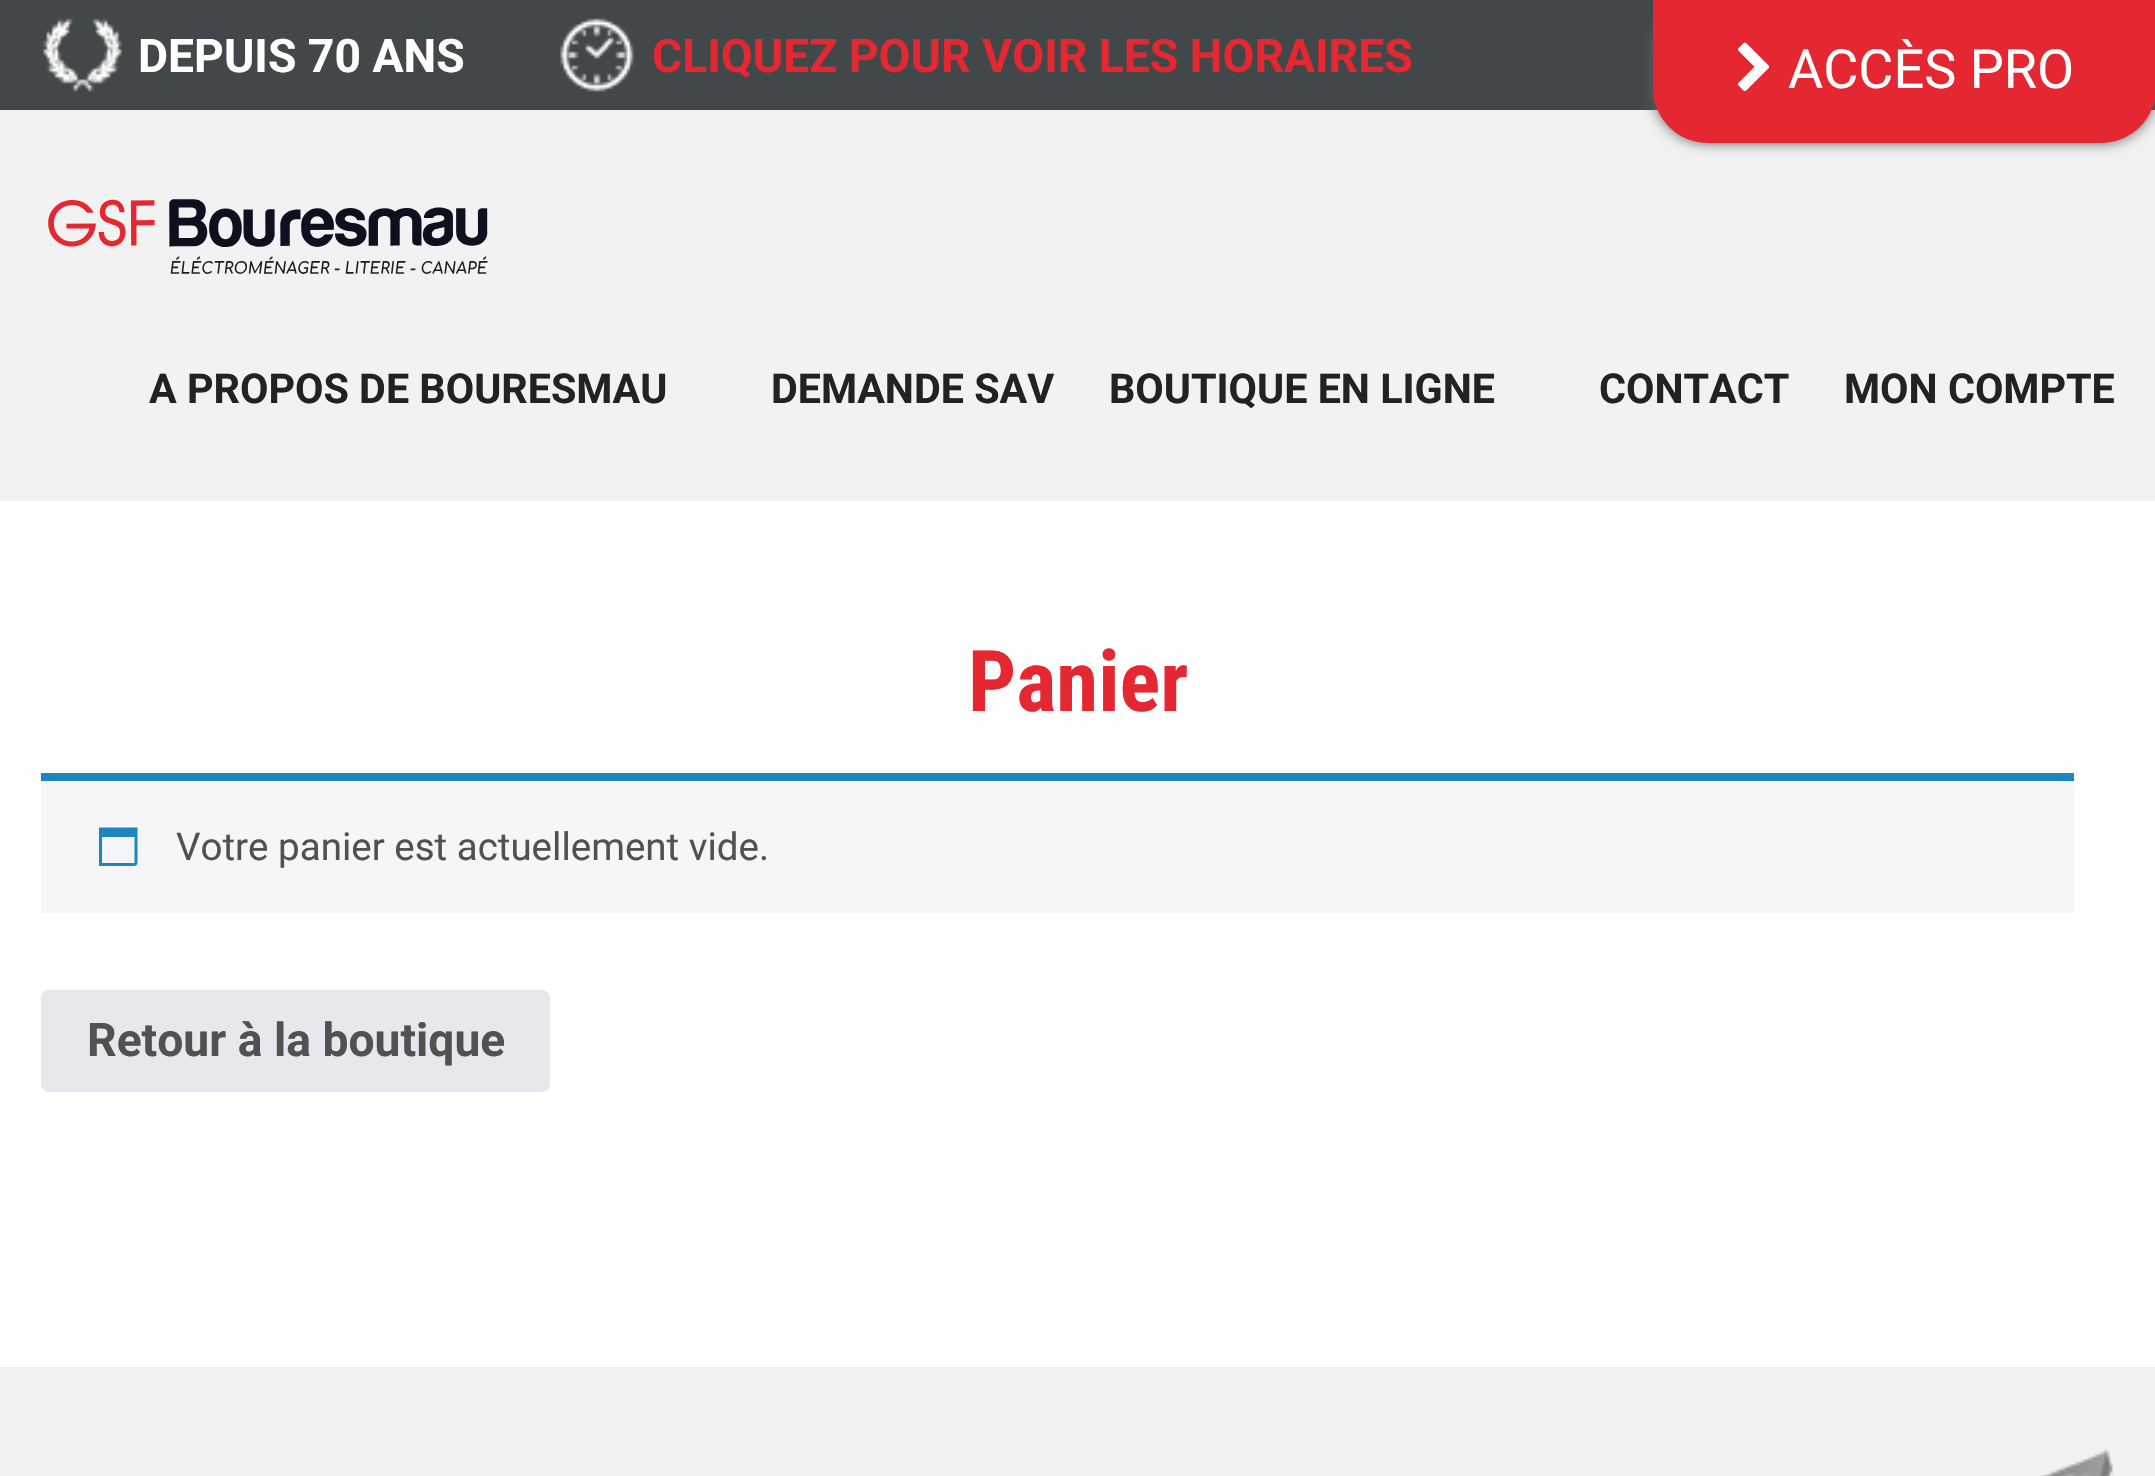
void draw(SkCanvas* c) {
SkPaint p;
p.setAntiAlias(true);
auto F=[&](const char* family, int weight, float size, bool italic = false){SkFontStyle style(weight, SkFontStyle::kNormal_Width,italic ? SkFontStyle::kItalic_Slant : SkFontStyle::kUpright_Slant);SkFont result(fontMgr->matchFamilyStyle(family, style), size);result.setSubpixel(true);return result;};
auto T=[&](const char* s, float x, float y, const SkFont& font){c->drawString(s, x, y, font, p);};
auto R=[&](float x, float y, float w, float h){c->drawRect(SkRect::MakeXYWH(x, y, w, h), p);};
auto Q=[&](float x, float y, float w, float h, float radius){c->drawRoundRect(SkRect::MakeXYWH(x, y, w, h), radius, radius, p);};
auto I=[&](const char* path, float x, float y, float w, float h){auto image = SkImages::DeferredFromEncodedData(SkData::MakeFromFileName(path));c->drawImageRect(image, SkRect::MakeXYWH(x, y, w, h), SkSamplingOptions());};
auto P=[&](const char* data, bool evenOdd = false){SkPath result = *SkParsePath::FromSVGString(data);if (evenOdd) result.setFillType(SkPathFillType::kEvenOdd);return result;};
c->clear(0xffffffff);
p.setColor(0xfff2f2f2);
R(0,110,2155,391);
p.setColor(0xff42474a);
R(0,0,2155,110);
I("1.png",43,18,79,74);
auto f1 = F("Roboto",700,46.25);
p.setColor(0xffffffff);
T("DEPUIS 70 ANS",138,72,f1);
I("2.png",560,18,74,74);
p.setColor(0xffe42730);
T("CLIQUEZ POUR VOIR LES HORAIRES",652,72,f1);
p.setColor(0xff656565);
p.setMaskFilter(SkMaskFilter::MakeBlur(kNormal_SkBlurStyle, 7));
c->drawRoundRect(SkRect::MakeXYWH(1653,0,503,143),55,55,p);
p.setMaskFilter(nullptr);
p.setColor(0xffe42730);
c->drawPath(P("M1653 0h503v88c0 30.5-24.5 55-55 55h-393c-30.5 0-55-24.5-55-55z"),p);
I("3.png",1738,42,32,49);
auto f2 = F("Roboto",400,54);
p.setColor(0xffffffff);
T("ACCÈS PRO",1788,88,f2);
I("4.png",48,199,440,75);
auto f3 = F("Roboto",700,41.25);
p.setColor(0xff222222);
T("A PROPOS DE BOURESMAU",149,403,f3);
T("DEMANDE SAV",771,403,f3);
T("BOUTIQUE EN LIGNE",1109,403,f3);
T("CONTACT",1599,403,f3);
T("MON COMPTE",1844,403,f3);
auto f4 = F("Roboto Condensed",700,85);
p.setColor(0xffe42730);
T("Panier",968,711,f4);
p.setColor(0xfff6f5f8);
R(41,781,2033,132);
p.setColor(0xff1e85be);
R(41,773,2033,8);
c->drawPath(P("M134.5 837h-32.5v26h32.5zm3-9.5v29.5c0 9.5 .5 9-9 9h-29.5v-38.5z"),p);
auto f5 = F("Roboto",400,38.5);
p.setColor(0xff515151);
T("Votre panier est actuellement vide.",176,860,f5);
p.setColor(0xffe9e6ed);
Q(41,990,509,102,8);
p.setColor(0xff515151);
T("Retour à la boutique",87,1056,f1);
p.setColor(0xfff2f2f2);
R(0,1367,2155,109);
I("5.png",2040,1449,73,27);
}
